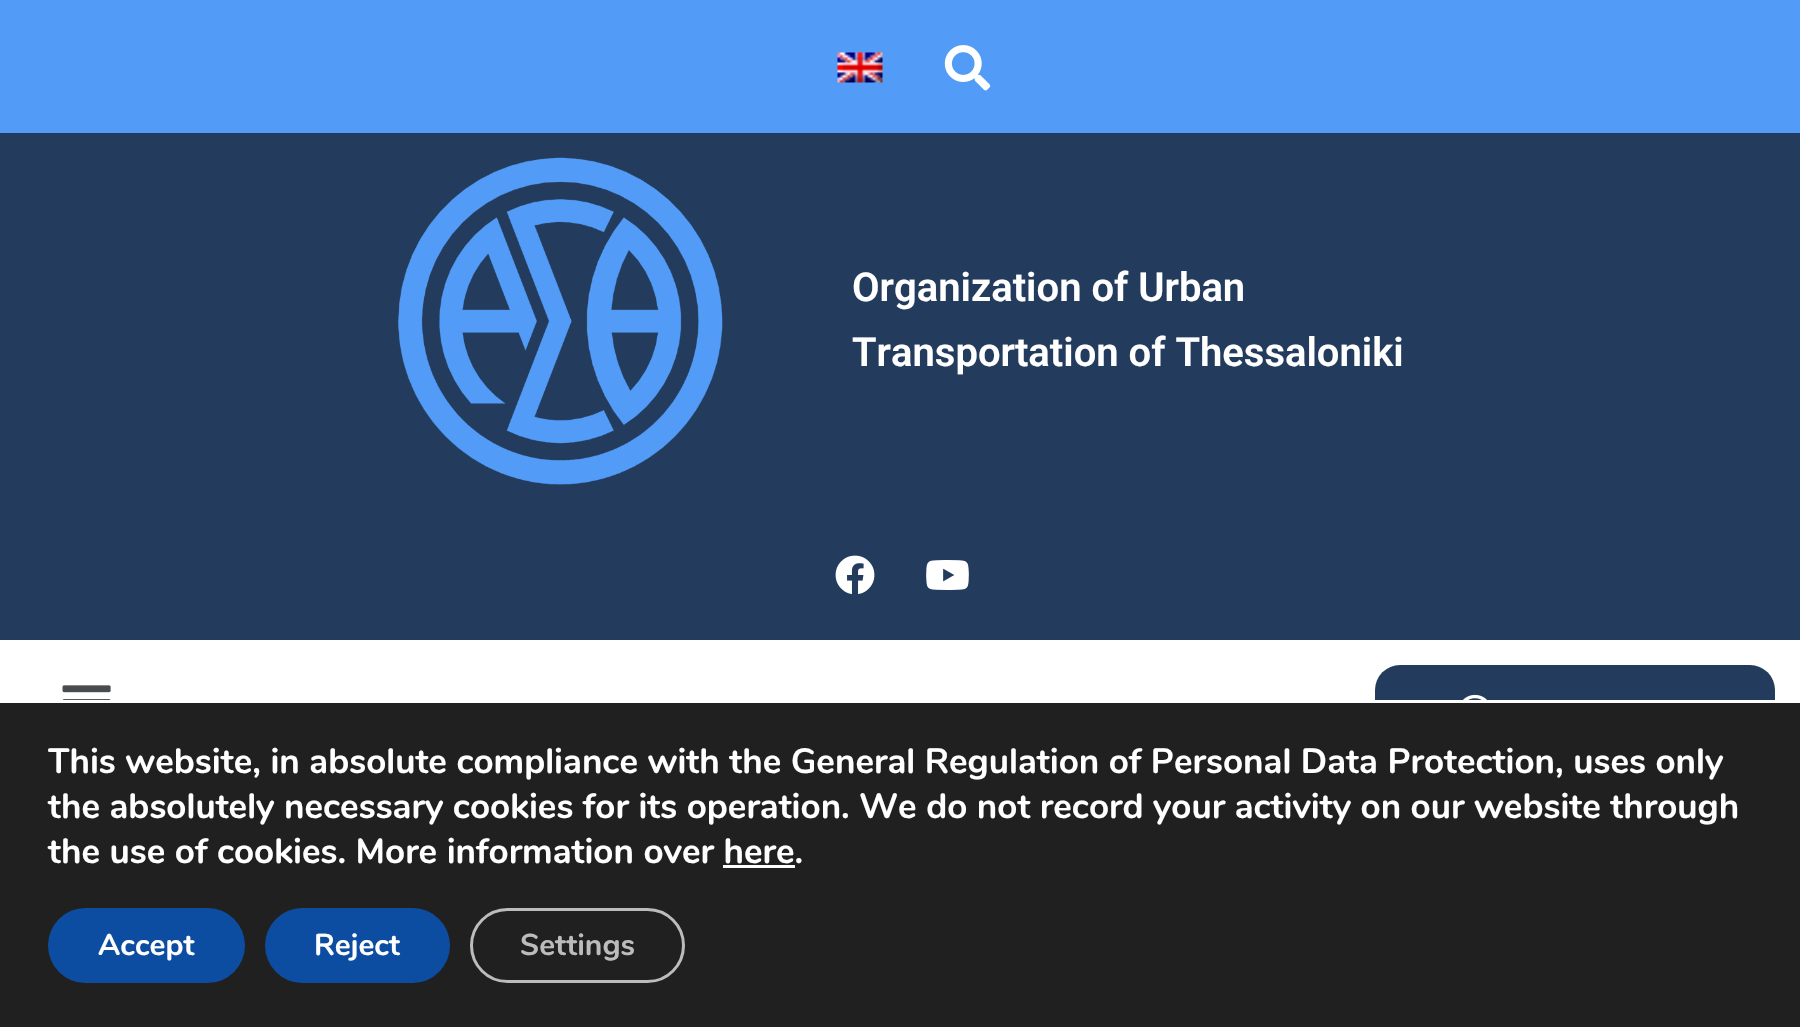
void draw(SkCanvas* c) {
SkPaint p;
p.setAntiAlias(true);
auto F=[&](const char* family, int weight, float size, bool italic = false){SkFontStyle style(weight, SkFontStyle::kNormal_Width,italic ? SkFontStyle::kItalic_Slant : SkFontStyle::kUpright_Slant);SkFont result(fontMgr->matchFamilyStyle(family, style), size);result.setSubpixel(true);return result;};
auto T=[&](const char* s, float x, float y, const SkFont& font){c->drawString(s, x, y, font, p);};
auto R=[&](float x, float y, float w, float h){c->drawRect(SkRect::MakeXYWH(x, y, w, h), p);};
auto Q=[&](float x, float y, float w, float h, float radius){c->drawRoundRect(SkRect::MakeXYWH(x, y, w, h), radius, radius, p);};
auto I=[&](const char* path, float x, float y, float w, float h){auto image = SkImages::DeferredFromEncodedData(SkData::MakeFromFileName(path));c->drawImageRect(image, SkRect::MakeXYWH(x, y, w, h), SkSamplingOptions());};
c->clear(0xffffffff);
p.setColor(0xff529bf6);
R(0,0,1800,133);
I("1.png",837,52,46,31);
I("2.png",944,45,47,46);
p.setColor(0xff233c5d);
R(0,133,1800,507);
I("3.png",398,157,325,328);
auto f1 = F("Roboto",600,40);
p.setColor(0xffffffff);
T("Organization of Urban",852,301,f1);
T("Transportation of Thessaloniki",852,366,f1);
I("4.png",835,555,40,40);
I("5.png",926,560,43,30);
I("6.png",62,685,49,15);
p.setColor(0xff233c5d);
Q(1375,665,400,98,25);
I("7.png",1463,694,24,6);
p.setColor(0xff202020);
R(0,703,1800,324);
p.setColor(0xffffffff);
R(1375,700,400,3);
auto f2 = F("Nunito",700,35);
T("This website, in absolute compliance with the General Regulation of Personal Data Protection, uses only",48,773,f2);
T("the absolutely necessary cookies for its operation. We do not record your activity on our website through",48,818,f2);
T("the use of cookies. More information over here.",48,863,f2);
R(723,865,72,3);
p.setColor(0xff0c4da2);
Q(48,908,197,75,37.5);
auto f3 = F("Nunito",700,30);
p.setColor(0xffffffff);
T("Accept",98,955,f3);
p.setColor(0xff0c4da2);
Q(265,908,185,75,37.5);
p.setColor(0xffffffff);
T("Reject",314,955,f3);
p.setStroke(true);
p.setStrokeWidth(3);
p.setColor(0xffbcbcbc);
c->drawRoundRect(SkRect::MakeXYWH(471.5,909.5,212,72),36,36,p);
p.setStroke(false);
T("Settings",520,955,f3);
}
